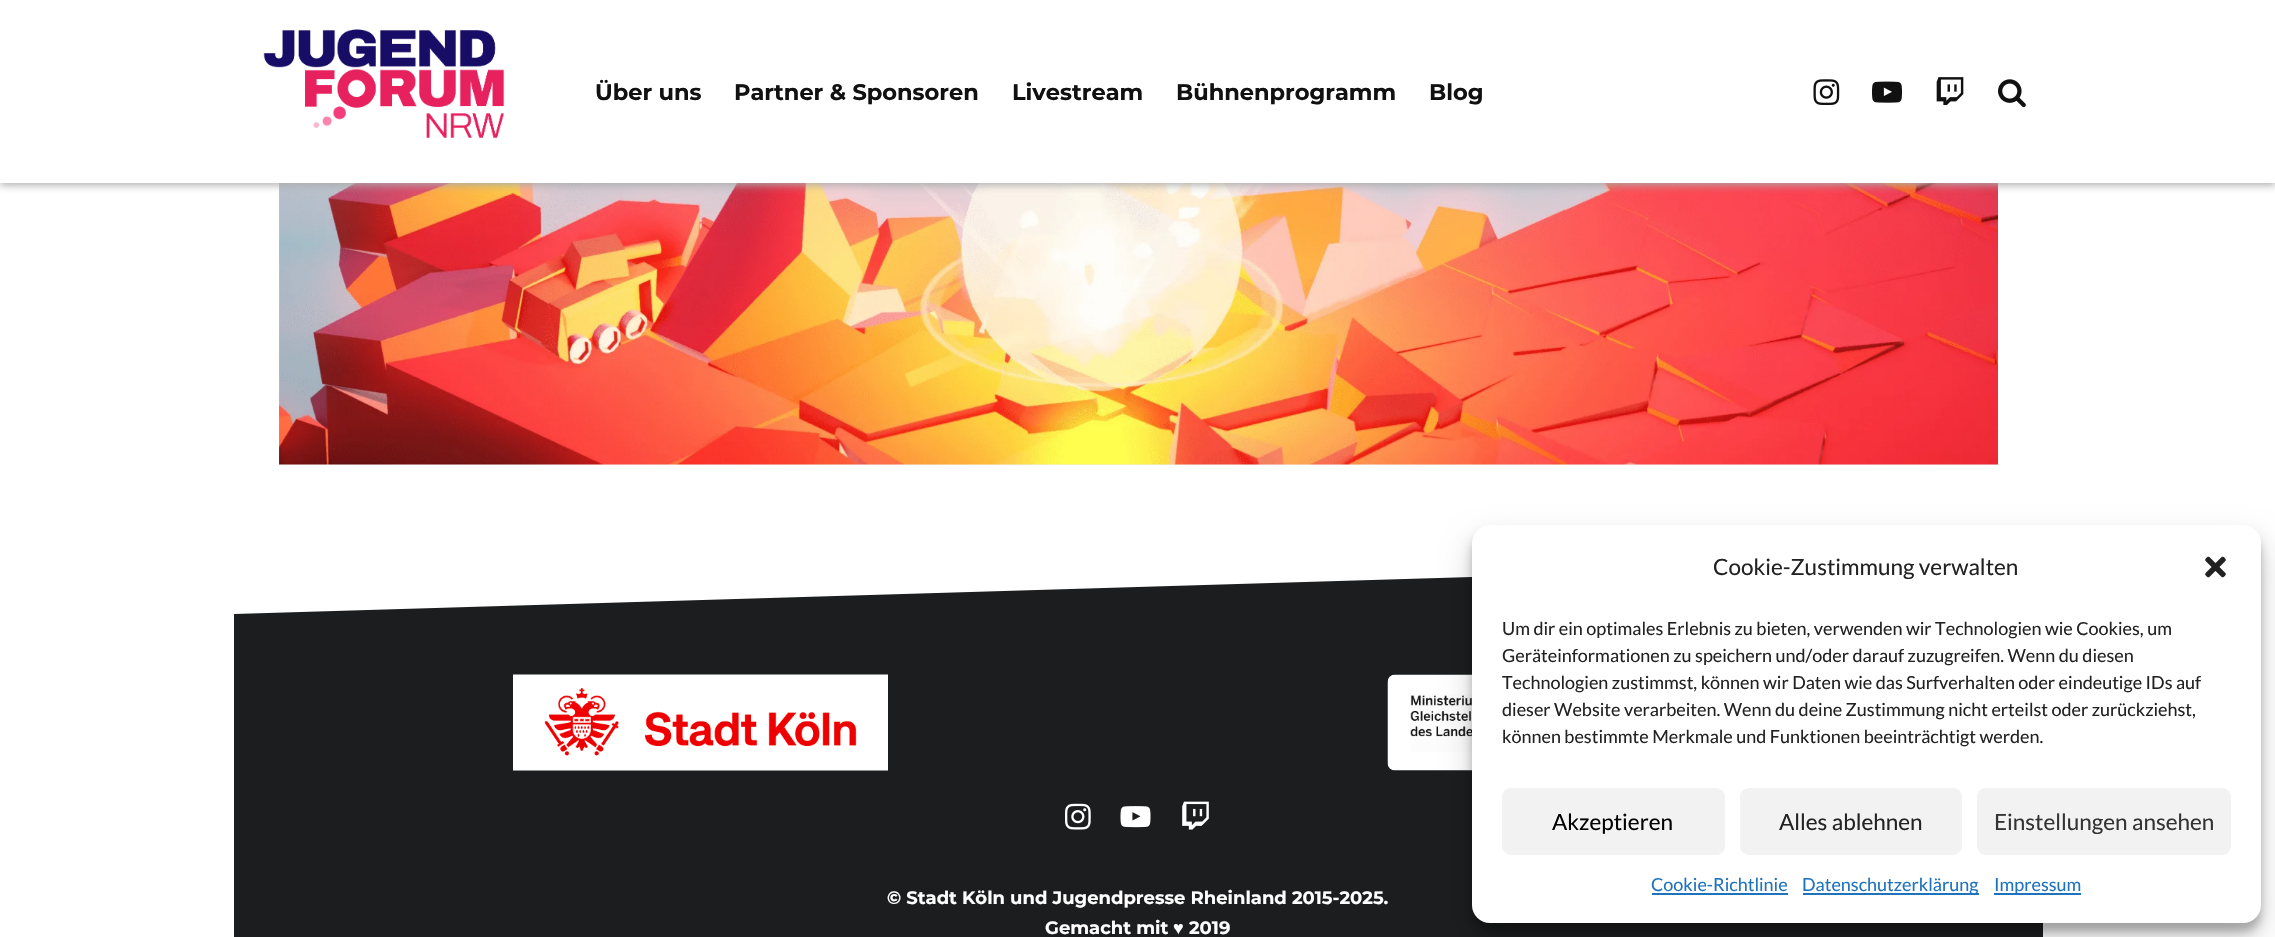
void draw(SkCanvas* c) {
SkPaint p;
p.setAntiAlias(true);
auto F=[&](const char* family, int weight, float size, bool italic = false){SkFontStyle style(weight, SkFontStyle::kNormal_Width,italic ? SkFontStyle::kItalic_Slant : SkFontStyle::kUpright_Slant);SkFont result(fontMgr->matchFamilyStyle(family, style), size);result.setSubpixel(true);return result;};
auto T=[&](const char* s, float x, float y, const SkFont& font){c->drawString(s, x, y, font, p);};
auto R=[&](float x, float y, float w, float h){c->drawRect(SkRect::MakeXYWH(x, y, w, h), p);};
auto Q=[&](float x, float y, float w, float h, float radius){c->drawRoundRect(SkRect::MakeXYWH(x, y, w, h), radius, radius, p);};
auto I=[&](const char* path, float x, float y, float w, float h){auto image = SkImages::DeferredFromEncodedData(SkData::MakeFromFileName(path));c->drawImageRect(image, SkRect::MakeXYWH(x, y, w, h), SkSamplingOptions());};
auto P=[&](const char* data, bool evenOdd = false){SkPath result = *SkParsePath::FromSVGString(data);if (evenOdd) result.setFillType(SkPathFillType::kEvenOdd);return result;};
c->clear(0xffffffff);
p.setColor(0xffeeeeee);
R(279,183,1719,282);
I("6.png",279,183,1719,282);
c->save();
c->clipRect(SkRect::MakeXYWH(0,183,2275,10));
p.setColor(0xffacacac);
p.setMaskFilter(SkMaskFilter::MakeBlur(kNormal_SkBlurStyle, 4));
c->drawRect(SkRect::MakeXYWH(0,2,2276,183),p);
p.setMaskFilter(nullptr);
c->restore();
I("1.png",263,29,242,109);
auto f1 = F("Montserrat",700,22.5);
p.setColor(0xff111111);
T("Über uns",595,100,f1);
T("Partner & Sponsoren",734,100,f1);
T("Livestream",1012,100,f1);
T("Bühnenprogramm",1176,100,f1);
T("Blog",1429,100,f1);
I("2.png",1813,79,27,26);
I("3.png",1872,81,30,22);
I("4.png",1936,77,28,28);
I("5.png",1998,79,28,29);
p.setColor(0xff1c1d1e);
R(234,577,1238,224);
c->save();
c->clipRect(SkRect::MakeXYWH(0,554,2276,67));
p.setColor(0xffffffff);
c->drawPath(P("M0 621v-68h2275z"),p);
c->restore();
I("7.png",513,674,375,97);
I("8.png",1387,674,85,97);
p.setColor(0xff1c1d1e);
R(234,801,1809,136);
I("9.png",1065,803,26,27);
I("10.png",1120,806,31,22);
I("11.png",1182,801,27,29);
auto f2 = F("Montserrat",700,18);
p.setColor(0xffffffff);
T("© Stadt Köln und Jugendpresse Rheinland 2015-2025.",887,904,f2);
T("Gemacht mit",1045,934,f2);
auto f3 = F("Liberation Sans",700,18);
T("♥",1173,934,f3);
T("2019",1189,934,f2);
p.setColor(0x3b000000);
p.setMaskFilter(SkMaskFilter::MakeBlur(kNormal_SkBlurStyle, 4.5));
c->drawRoundRect(SkRect::MakeXYWH(1472,534,789,398),18,18,p);
p.setMaskFilter(nullptr);
p.setColor(0x30000000);
p.setMaskFilter(SkMaskFilter::MakeBlur(kNormal_SkBlurStyle, 15));
c->drawRoundRect(SkRect::MakeXYWH(1472,540,789,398),18,18,p);
p.setMaskFilter(nullptr);
p.setColor(0xffffffff);
Q(1472,525,789,398,18);
auto f4 = F("Lato",400,22.5);
p.setColor(0xff222222);
T("Cookie-Zustimmung verwalten",1713,575,f4);
I("12.png",2205,556,21,22);
auto f5 = F("Lato",400,18);
T("Um dir ein optimales Erlebnis zu bieten, verwenden wir Technologien wie Cookies, um",1502,635,f5);
T("Geräteinformationen zu speichern und/oder darauf zuzugreifen. Wenn du diesen",1502,662,f5);
T("Technologien zustimmst, können wir Daten wie das Surfverhalten oder eindeutige IDs auf",1502,689,f5);
T("dieser Website verarbeiten. Wenn du deine Zustimmung nicht erteilst oder zurückziehst,",1502,716,f5);
T("können bestimmte Merkmale und Funktionen beeinträchtigt werden.",1502,743,f5);
p.setColor(0xfff2f2f2);
c->drawRoundRect(SkRect::MakeXYWH(1503,789,221,65),8,8,p);
p.setStroke(true);
p.setStrokeWidth(2);
c->drawRoundRect(SkRect::MakeXYWH(1503,789,221,65),8,8,p);
p.setStroke(false);
p.setColor(0xff000000);
T("Akzeptieren",1552,830,f4);
p.setColor(0xfff2f2f2);
c->drawRoundRect(SkRect::MakeXYWH(1741,789,220,65),8,8,p);
p.setStroke(true);
c->drawRoundRect(SkRect::MakeXYWH(1741,789,220,65),8,8,p);
p.setStroke(false);
p.setColor(0xff222222);
T("Alles ablehnen",1779,830,f4);
p.setColor(0xfff2f2f2);
c->drawRoundRect(SkRect::MakeXYWH(1978,789,252,65),8,8,p);
p.setStroke(true);
c->drawRoundRect(SkRect::MakeXYWH(1978,789,252,65),8,8,p);
p.setStroke(false);
p.setColor(0xff333333);
T("Einstellungen ansehen",1994,830,f4);
p.setColor(0xff1e73be);
T("Cookie-Richtlinie",1651,891,f5);
R(1652,893,136,2);
R(1803,893,176,2);
T("Datenschutzerklärung",1802,891,f5);
R(1994,893,87,2);
T("Impressum",1994,891,f5);
}
